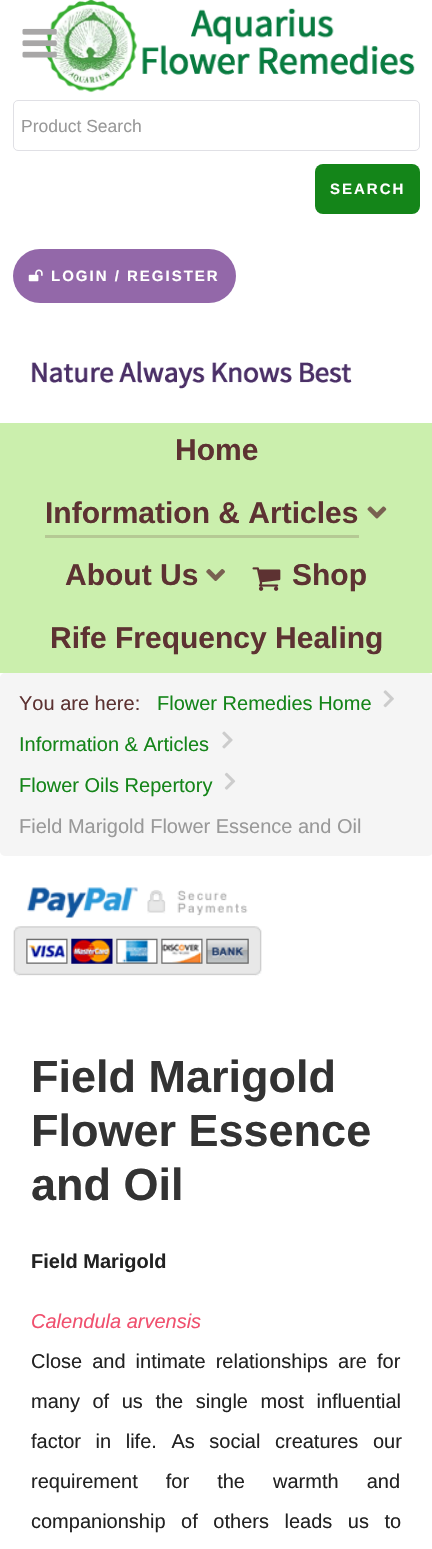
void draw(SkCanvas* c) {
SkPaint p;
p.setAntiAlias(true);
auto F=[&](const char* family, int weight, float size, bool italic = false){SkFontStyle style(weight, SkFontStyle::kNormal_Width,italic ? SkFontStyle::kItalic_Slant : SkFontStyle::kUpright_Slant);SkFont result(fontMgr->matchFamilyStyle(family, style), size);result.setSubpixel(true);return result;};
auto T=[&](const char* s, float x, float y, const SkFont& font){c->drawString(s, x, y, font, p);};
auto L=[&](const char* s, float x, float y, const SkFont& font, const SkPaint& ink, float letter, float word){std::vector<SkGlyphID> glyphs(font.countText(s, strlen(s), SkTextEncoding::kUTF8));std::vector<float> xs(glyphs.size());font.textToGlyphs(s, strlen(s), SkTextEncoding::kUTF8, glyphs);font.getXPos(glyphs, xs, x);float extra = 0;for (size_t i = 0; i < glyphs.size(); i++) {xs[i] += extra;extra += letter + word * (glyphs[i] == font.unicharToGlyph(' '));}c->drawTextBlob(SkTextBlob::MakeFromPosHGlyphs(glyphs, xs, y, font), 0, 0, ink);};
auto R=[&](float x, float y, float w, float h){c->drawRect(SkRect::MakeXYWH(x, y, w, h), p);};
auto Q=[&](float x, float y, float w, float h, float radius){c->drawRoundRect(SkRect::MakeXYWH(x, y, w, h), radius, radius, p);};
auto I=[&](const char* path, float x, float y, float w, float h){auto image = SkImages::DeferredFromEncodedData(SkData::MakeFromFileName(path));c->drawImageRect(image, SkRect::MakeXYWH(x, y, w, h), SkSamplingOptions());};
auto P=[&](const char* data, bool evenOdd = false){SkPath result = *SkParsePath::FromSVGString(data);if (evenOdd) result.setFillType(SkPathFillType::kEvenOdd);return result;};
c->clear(0xffffffff);
I("2.png",45,0,370,93);
I("1.png",22,28,35,30);
p.setStroke(true);
p.setStrokeWidth(1);
p.setColor(0xffe0e0e5);
c->drawRoundRect(SkRect::MakeXYWH(13.5,100.5,406,50),4.5,4.5,p);
auto f1 = F("Liberation Sans",400,17.5);
p.setStroke(false);
p.setColor(0xff999999);
T("Product Search",21,132,f1);
p.setColor(0xff148519);
Q(315,164,105,50,8);
auto f2 = F("Liberation Sans",700,15);
p.setColor(0xffffffff);
L("SEARCH",330,194,f2,p,2,0);
p.setColor(0xff9368a9);
Q(13,249,223,54,27);
I("3.png",28,269,15,13);
p.setColor(0xffffffff);
L("LOGIN / REGISTER",51,281,f2,p,2,0);
I("4.png",31,361,321,28);
p.setColor(0xffcbefad);
R(0,423,432,250);
auto f3 = F("Liberation Sans",700,30);
p.setColor(0xff5d3232);
T("Home",175,460,f3);
p.setColor(0xffb5c994);
c->drawPath(P("M45 535v3h314v-40v37z"),p);
p.setColor(0xff5d3232);
T("Information & Articles",45,523,f3);
I("5.png",367,506,20,13);
T("About Us",65,585,f3);
I("6.png",206,569,19,12);
I("7.png",252,567,29,24);
T("Shop",292,585,f3);
T("Rife Frequency Healing",50,648,f3);
p.setColor(0xfff5f5f5);
Q(0,673,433,183,5);
auto f4 = F("Liberation Sans",400,20);
p.setColor(0xff5d3232);
T("You are here:",19,710,f4);
p.setColor(0xff148519);
T("Flower Remedies Home",157,710,f4);
I("8.png",383,690,11,18);
T("Information & Articles",19,751,f4);
I("9.png",222,731,11,18);
T("Flower Oils Repertory",19,792,f4);
I("10.png",224,772,12,18);
p.setColor(0xff999999);
T("Field Marigold Flower Essence and Oil",19,833,f4);
I("11.png",13,887,249,89);
auto f5 = F("Liberation Sans",700,45);
p.setColor(0xff333333);
T("Field Marigold",31,1092,f5);
T("Flower Essence",31,1146,f5);
T("and Oil",31,1200,f5);
auto f6 = F("Liberation Sans",700,20);
p.setColor(0xff222222);
T("Field Marigold",31,1268,f6);
auto f7 = F("Liberation Sans",400,20,true);
p.setColor(0xfff0506e);
T("Calendula arvensis",31,1328,f7);
p.setColor(0xff222222);
L("Close and intimate relationships are for",31,1368,f4,p,0,4.5);
L("many of us the single most influential",31,1408,f4,p,0,7);
L("factor in life. As social creatures our",31,1448,f4,p,0,9);
L("requirement for the warmth and",31,1488,f4,p,0,22.5);
L("companionship of others leads us to",31,1528,f4,p,0,10);
}
